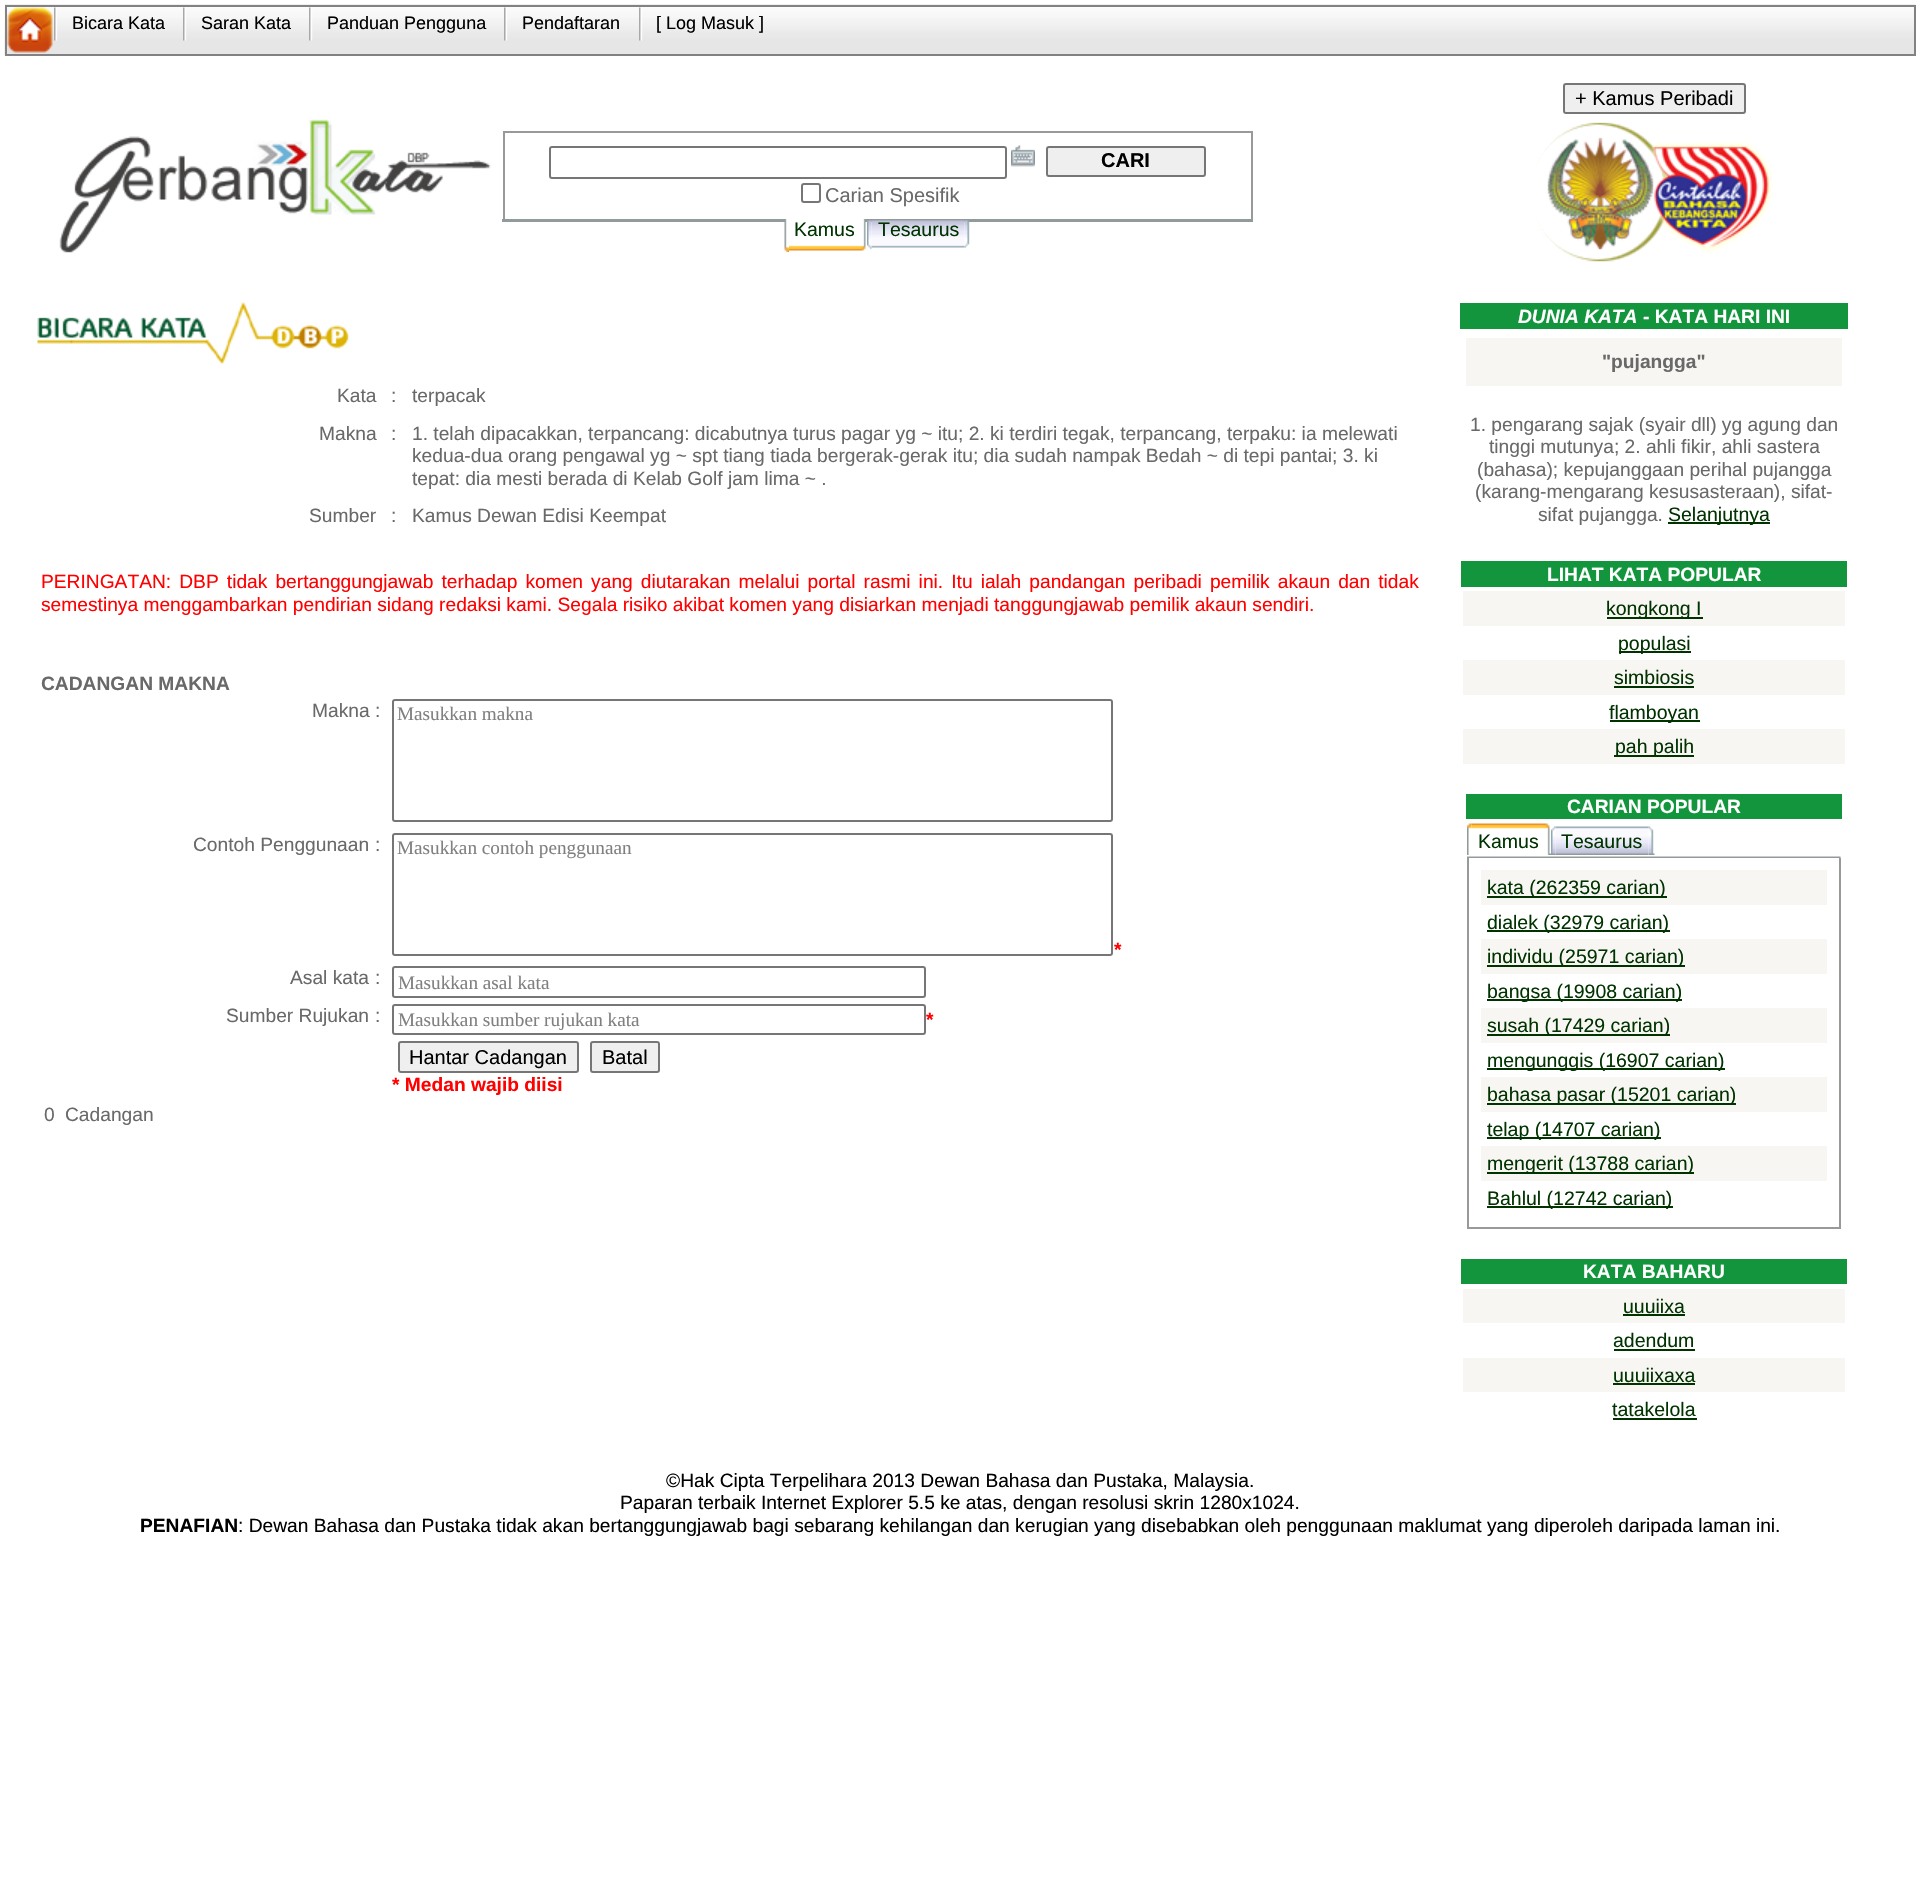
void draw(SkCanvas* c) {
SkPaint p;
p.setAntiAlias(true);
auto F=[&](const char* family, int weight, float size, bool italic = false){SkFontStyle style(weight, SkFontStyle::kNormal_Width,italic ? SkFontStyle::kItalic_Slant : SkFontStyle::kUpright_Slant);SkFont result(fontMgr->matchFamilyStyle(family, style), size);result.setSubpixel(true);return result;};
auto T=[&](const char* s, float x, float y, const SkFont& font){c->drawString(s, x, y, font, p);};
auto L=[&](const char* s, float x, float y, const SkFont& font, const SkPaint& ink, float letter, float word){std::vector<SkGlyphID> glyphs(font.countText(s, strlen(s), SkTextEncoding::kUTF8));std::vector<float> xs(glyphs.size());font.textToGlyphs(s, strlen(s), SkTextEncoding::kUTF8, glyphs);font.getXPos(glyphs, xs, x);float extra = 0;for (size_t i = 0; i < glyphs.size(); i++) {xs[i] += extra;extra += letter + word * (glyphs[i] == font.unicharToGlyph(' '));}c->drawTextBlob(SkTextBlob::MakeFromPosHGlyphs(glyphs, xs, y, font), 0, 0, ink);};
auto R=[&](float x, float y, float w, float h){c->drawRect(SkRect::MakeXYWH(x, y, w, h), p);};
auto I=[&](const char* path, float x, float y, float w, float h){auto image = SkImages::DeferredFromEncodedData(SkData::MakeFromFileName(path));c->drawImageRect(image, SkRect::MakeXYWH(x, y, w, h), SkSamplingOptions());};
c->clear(0xffffffff);
I("1.png",4,4,1912,52);
p.setStroke(true);
p.setStrokeWidth(2);
p.setColor(0xff828282);
c->drawRect(SkRect::MakeXYWH(6,6,1909,49),p);
I("2.png",7,7,46,46);
I("3.png",54,7,4,34);
auto f1 = F("Liberation Sans",400,18);
p.setStroke(false);
p.setColor(0xff000000);
T("Bicara Kata",72,29,f1);
I("3.png",183,7,4,34);
T("Saran Kata",201,29,f1);
I("3.png",309,7,4,34);
T("Panduan Pengguna",327,29,f1);
I("4.png",504,7,4,34);
T("Pendaftaran",522,29,f1);
I("3.png",639,7,4,34);
T("[ Log Masuk ]",656,29,f1);
I("5.png",59,119,432,134);
p.setColor(0xff999999);
R(503,131,750,2);
R(1251,131,2,88);
R(503,131,2,88);
p.setStroke(true);
p.setColor(0xff767676);
c->drawRoundRect(SkRect::MakeXYWH(550,147,456,31),2,2,p);
I("6.png",1011,145,24,22);
p.setStroke(false);
p.setColor(0xffefefef);
c->drawRoundRect(SkRect::MakeXYWH(1047,147,158,29),2,2,p);
p.setStroke(true);
p.setColor(0xff767676);
c->drawRoundRect(SkRect::MakeXYWH(1047,147,158,29),2,2,p);
auto f2 = F("Liberation Sans",700,20);
p.setStroke(false);
p.setColor(0xff000000);
T("CARI",1101,167,f2);
p.setStroke(true);
p.setColor(0xff767676);
c->drawRoundRect(SkRect::MakeXYWH(802,184,18,18),2,2,p);
auto f3 = F("Liberation Sans",400,20);
p.setStroke(false);
p.setColor(0xff696969);
T("Carian Spesifik",825,202,f3);
p.setColor(0xff919b9c);
R(502,219,751,3);
I("7.png",861,219,5,32);
I("8.png",784,219,5,33);
I("9.png",789,219,72,32);
auto f4 = F("Liberation Sans",400,19.5);
p.setColor(0xff003300);
T("Kamus",794,236,f4);
I("10.png",964,220,6,28);
I("11.png",867,220,5,30);
I("12.png",871,220,94,28);
T("Tesaurus",878,236,f4);
I("13.png",37,301,312,63);
auto f5 = F("Liberation Sans",400,19.2);
p.setColor(0xff696969);
T("Kata",337,402,f5);
T(":",391,402,f5);
T("terpacak",412,402,f5);
T("Makna",319,440,f5);
T(":",391,440,f5);
T("1. telah dipacakkan, terpancang: dicabutnya turus pagar yg ~ itu; 2. ki terdiri tegak, terpancang, terpaku: ia melewati",412,440,f5);
T("kedua-dua orang pengawal yg ~ spt tiang tiada bergerak-gerak itu; dia sudah nampak Bedah ~ di tepi pantai; 3. ki",412,462,f5);
T("tepat: dia mesti berada di Kelab Golf jam lima ~ .",412,485,f5);
T("Sumber",309,522,f5);
T(":",391,522,f5);
T("Kamus Dewan Edisi Keempat",412,522,f5);
p.setColor(0xffff0000);
L("PERINGATAN: DBP tidak bertanggungjawab terhadap komen yang diutarakan melalui portal rasmi ini. Itu ialah pandangan peribadi pemilik akaun dan tidak",41,588,f5,p,0,2.75);
T("semestinya menggambarkan pendirian sidang redaksi kami. Segala risiko akibat komen yang disiarkan menjadi tanggungjawab pemilik akaun sendiri.",41,611,f5);
auto f6 = F("Liberation Sans",700,19.2);
p.setColor(0xff696969);
T("CADANGAN MAKNA",41,690,f6);
T("Makna",312,717,f5);
T(":",375,717,f5);
p.setStroke(true);
p.setColor(0xff767676);
c->drawRoundRect(SkRect::MakeXYWH(393,700,719,121),2,2,p);
auto f7 = F("Liberation Serif",400,19.2);
p.setStroke(false);
p.setColor(0xff808080);
T("Masukkan makna",397,720,f7);
p.setColor(0xff696969);
T("Contoh Penggunaan",193,851,f5);
T(":",375,851,f5);
p.setStroke(true);
p.setColor(0xff767676);
c->drawRoundRect(SkRect::MakeXYWH(393,834,719,121),2,2,p);
p.setStroke(false);
p.setColor(0xff808080);
T("Masukkan contoh penggunaan",397,854,f7);
p.setColor(0xffff0000);
T("*",1114,956,f6);
p.setColor(0xff696969);
T("Asal kata",290,984,f5);
T(":",375,984,f5);
p.setStroke(true);
p.setColor(0xff767676);
c->drawRoundRect(SkRect::MakeXYWH(393,967,532,30),2,2,p);
p.setStroke(false);
p.setColor(0xff808080);
T("Masukkan asal kata",398,989,f7);
p.setColor(0xff696969);
T("Sumber Rujukan",226,1022,f5);
T(":",375,1022,f5);
p.setStroke(true);
p.setColor(0xff767676);
c->drawRoundRect(SkRect::MakeXYWH(393,1005,532,29),2,2,p);
p.setStroke(false);
p.setColor(0xff808080);
T("Masukkan sumber rujukan kata",398,1026,f7);
p.setColor(0xffff0000);
T("*",926,1026,f6);
p.setColor(0xffefefef);
c->drawRoundRect(SkRect::MakeXYWH(399,1042,179,30),2,2,p);
p.setStroke(true);
p.setColor(0xff767676);
c->drawRoundRect(SkRect::MakeXYWH(399,1042,179,30),2,2,p);
p.setStroke(false);
p.setColor(0xff000000);
T("Hantar Cadangan",409,1064,f3);
p.setColor(0xffefefef);
c->drawRoundRect(SkRect::MakeXYWH(591,1042,68,30),2,2,p);
p.setStroke(true);
p.setColor(0xff767676);
c->drawRoundRect(SkRect::MakeXYWH(591,1042,68,30),2,2,p);
p.setStroke(false);
p.setColor(0xff000000);
T("Batal",602,1064,f3);
p.setColor(0xffff0000);
T("* Medan wajib diisi",392,1091,f6);
p.setColor(0xff696969);
T("0",44,1121,f5);
T("Cadangan",65,1121,f5);
p.setColor(0xffefefef);
c->drawRoundRect(SkRect::MakeXYWH(1564,84,181,29),2,2,p);
p.setStroke(true);
p.setColor(0xff767676);
c->drawRoundRect(SkRect::MakeXYWH(1564,84,181,29),2,2,p);
p.setStroke(false);
p.setColor(0xff000000);
T("+ Kamus Peribadi",1575,105,f3);
I("14.png",1536,122,237,140);
p.setColor(0xff13953d);
R(1460,303,388,26);
auto f8 = F("Liberation Sans",700,19.2,true);
p.setColor(0xffffffff);
T("DUNIA KATA",1518,323,f8);
T("- KATA HARI INI",1643,323,f6);
p.setColor(0xfff7f6f3);
R(1466,338,376,48);
p.setColor(0xff696969);
T("\"pujangga\"",1602,368,f6);
T("1. pengarang sajak (syair dll) yg agung dan",1470,431,f5);
T("tinggi mutunya; 2. ahli fikir, ahli sastera",1489,453,f5);
T("(bahasa); kepujanggaan perihal pujangga",1477,476,f5);
T("(karang-mengarang kesusasteraan), sifat-",1475,498,f5);
T("sifat pujangga.",1538,521,f5);
p.setColor(0xff003300);
R(1668,522,102,2);
T("Selanjutnya",1668,521,f4);
p.setColor(0xff13953d);
R(1461,561,386,26);
p.setColor(0xffffffff);
T("LIHAT KATA POPULAR",1547,581,f6);
p.setColor(0xfff7f6f3);
R(1463,591,382,35);
p.setColor(0xff003300);
R(1607,617,96,2);
T("kongkong I",1606,615,f4);
R(1619,651,72,2);
T("populasi",1618,650,f4);
p.setColor(0xfff7f6f3);
R(1463,660,382,35);
p.setColor(0xff003300);
T("simbiosis",1614,684,f4);
R(1614,686,80,2);
R(1610,720,90,2);
T("flamboyan",1609,719,f4);
p.setColor(0xfff7f6f3);
R(1463,729,382,35);
p.setColor(0xff003300);
R(1614,755,80,2);
T("pah palih",1615,753,f4);
p.setColor(0xff13953d);
R(1466,794,376,25);
p.setColor(0xffffffff);
T("CARIAN POPULAR",1567,813,f6);
I("15.png",1467,856,374,2);
I("16.png",1545,823,6,32);
I("17.png",1467,823,5,32);
I("18.png",1471,823,74,6);
p.setColor(0xff003300);
T("Kamus",1478,848,f4);
I("19.png",1648,826,7,29);
I("20.png",1551,826,5,29);
I("21.png",1555,826,94,29);
T("Tesaurus",1561,848,f4);
p.setColor(0xff999999);
R(1839,858,2,371);
R(1467,1227,374,2);
R(1467,858,2,371);
p.setColor(0xfff7f6f3);
R(1481,870,346,35);
p.setColor(0xff003300);
R(1487,896,180,2);
T("kata (262359 carian)",1487,894,f4);
R(1487,930,183,2);
T("dialek (32979 carian)",1487,929,f4);
p.setColor(0xfff7f6f3);
R(1481,939,346,35);
p.setColor(0xff003300);
R(1487,965,198,2);
T("individu (25971 carian)",1487,963,f4);
R(1487,999,195,2);
T("bangsa (19908 carian)",1487,998,f4);
p.setColor(0xfff7f6f3);
R(1481,1008,346,35);
p.setColor(0xff003300);
R(1487,1034,183,2);
T("susah (17429 carian)",1487,1032,f4);
R(1487,1068,238,2);
T("mengunggis (16907 carian)",1487,1067,f4);
p.setColor(0xfff7f6f3);
R(1481,1077,346,35);
p.setColor(0xff003300);
R(1487,1103,249,2);
T("bahasa pasar (15201 carian)",1487,1101,f4);
R(1487,1137,174,2);
T("telap (14707 carian)",1487,1136,f4);
p.setColor(0xfff7f6f3);
R(1481,1146,346,35);
p.setColor(0xff003300);
R(1487,1172,207,2);
T("mengerit (13788 carian)",1487,1170,f4);
R(1487,1206,186,2);
T("Bahlul (12742 carian)",1487,1205,f4);
p.setColor(0xff13953d);
R(1461,1259,386,25);
p.setColor(0xffffffff);
T("KATA BAHARU",1583,1278,f6);
p.setColor(0xfff7f6f3);
R(1463,1289,382,34);
p.setColor(0xff003300);
T("uuuiixa",1623,1313,f4);
R(1623,1314,62,2);
T("adendum",1613,1347,f4);
R(1614,1349,81,2);
p.setColor(0xfff7f6f3);
R(1463,1358,382,34);
p.setColor(0xff003300);
T("uuuiixaxa",1613,1382,f4);
R(1613,1383,82,2);
T("tatakelola",1612,1416,f4);
R(1613,1418,84,2);
p.setColor(0xff000000);
T("©Hak Cipta Terpelihara 2013 Dewan Bahasa dan Pustaka, Malaysia.",666,1487,f5);
T("Paparan terbaik Internet Explorer 5.5 ke atas, dengan resolusi skrin 1280x1024.",620,1509,f5);
T("PENAFIAN",140,1532,f6);
T(": Dewan Bahasa dan Pustaka tidak akan bertanggungjawab bagi sebarang kehilangan dan kerugian yang disebabkan oleh penggunaan maklumat yang diperoleh daripada laman ini.",238,1532,f5);
}
